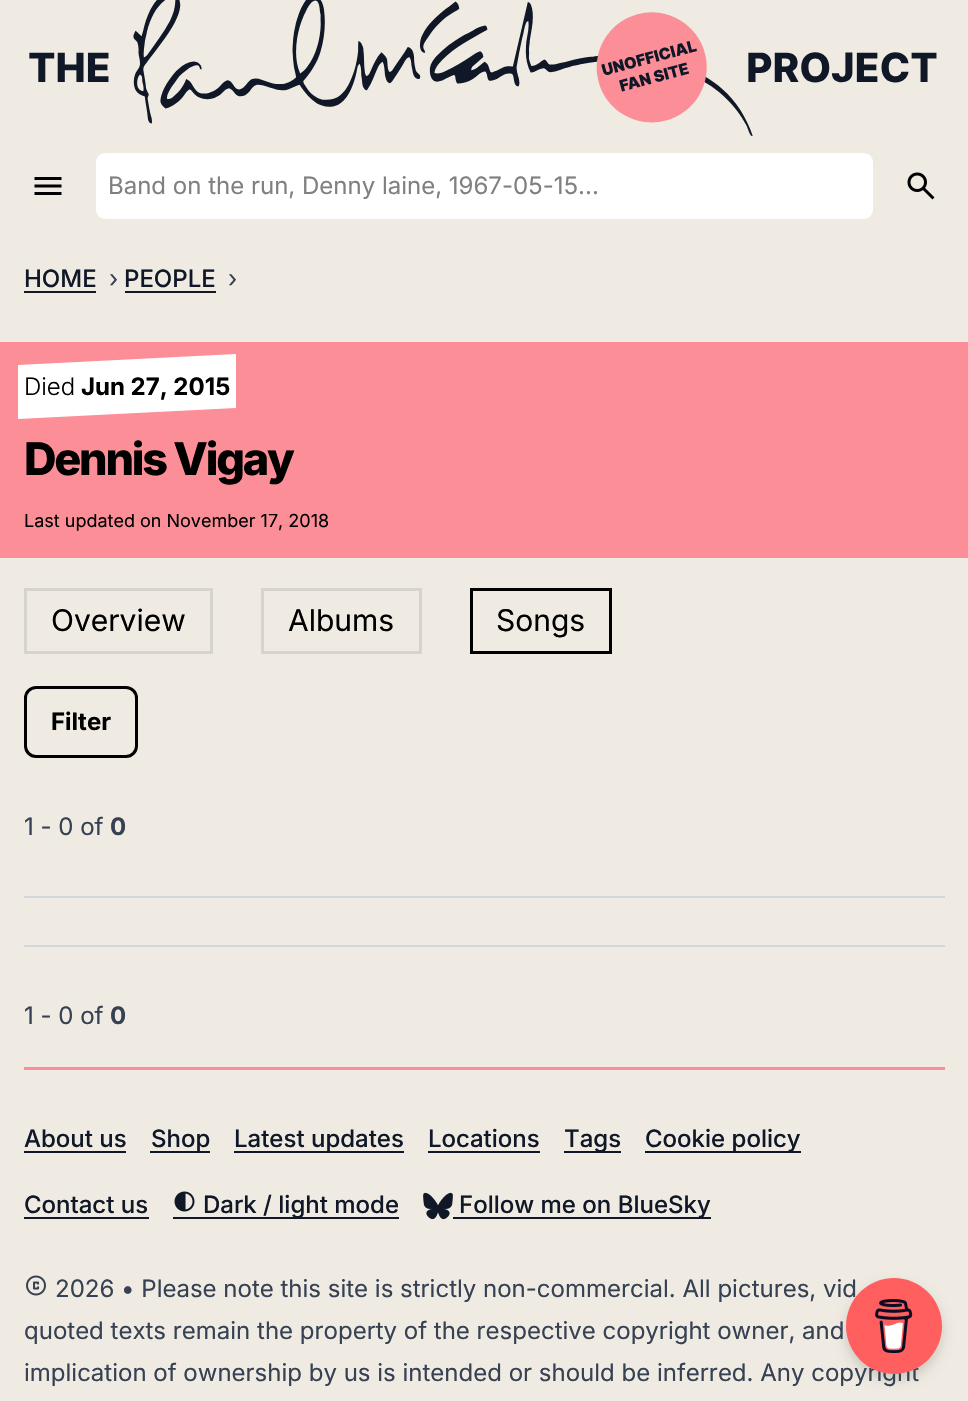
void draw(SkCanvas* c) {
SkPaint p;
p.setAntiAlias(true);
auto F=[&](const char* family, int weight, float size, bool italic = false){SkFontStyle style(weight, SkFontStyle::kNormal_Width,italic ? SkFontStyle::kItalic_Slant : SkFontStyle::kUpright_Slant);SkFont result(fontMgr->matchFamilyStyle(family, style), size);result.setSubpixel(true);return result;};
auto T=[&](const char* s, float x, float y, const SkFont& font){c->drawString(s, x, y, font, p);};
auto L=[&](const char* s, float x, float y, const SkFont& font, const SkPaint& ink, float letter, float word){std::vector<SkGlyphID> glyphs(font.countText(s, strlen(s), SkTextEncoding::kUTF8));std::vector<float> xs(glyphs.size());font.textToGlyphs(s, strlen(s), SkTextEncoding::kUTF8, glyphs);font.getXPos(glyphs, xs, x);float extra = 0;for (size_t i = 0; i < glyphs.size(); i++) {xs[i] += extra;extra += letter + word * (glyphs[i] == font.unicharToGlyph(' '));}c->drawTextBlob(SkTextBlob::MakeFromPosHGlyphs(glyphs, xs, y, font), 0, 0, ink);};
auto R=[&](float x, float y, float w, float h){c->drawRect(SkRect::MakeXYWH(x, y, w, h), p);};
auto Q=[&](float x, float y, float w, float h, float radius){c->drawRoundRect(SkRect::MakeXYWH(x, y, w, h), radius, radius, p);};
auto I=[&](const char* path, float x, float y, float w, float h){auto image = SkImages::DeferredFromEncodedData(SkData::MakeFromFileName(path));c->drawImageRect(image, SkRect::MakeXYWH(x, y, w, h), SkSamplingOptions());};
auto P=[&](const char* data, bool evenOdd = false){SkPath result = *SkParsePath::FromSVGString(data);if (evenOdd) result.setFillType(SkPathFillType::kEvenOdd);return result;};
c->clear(0xffefebe2);
I("1.png",29,0,908,136);
I("2.png",34,177,28,18);
p.setColor(0xffffffff);
Q(96,153,777,66,9);
auto f1 = F("Inter",400,24);
p.setColor(0xff808080);
T("Band on the run, Denny laine, 1967-05-15...",108,194,f1);
I("3.png",907,172,28,28);
auto f2 = F("Inter",500,24);
p.setColor(0xff101828);
T("HOME",24,287,f2);
R(24,291,72,2);
p.setColor(0xff364153);
T("›",109,287,f1);
p.setColor(0xff101828);
T("PEOPLE",124,287,f2);
R(125,291,91,2);
p.setColor(0xff364153);
T("›",228,287,f1);
p.setColor(0xfffb8e97);
R(0,342,968,216);
p.setColor(0xffffffff);
c->drawPath(P("M18 365l218-11v54l-218 11z"),p);
auto f3 = F("Inter",300,24);
p.setColor(0xff000000);
T("Died",24,395,f3);
auto f4 = F("Inter",700,24);
T("Jun 27, 2015",81,395,f4);
auto f5 = F("Inter",800,45);
L("Dennis Vigay",24,475,f5,p,-2.25,0);
auto f6 = F("Inter",400,18);
T("Last updated on November 17, 2018",24,527,f6);
p.setStroke(true);
p.setStrokeWidth(3);
p.setColor(0xffd7d4cb);
c->drawRect(SkRect::MakeXYWH(25.5,589.5,186,63),p);
auto f7 = F("Inter",400,30);
p.setStroke(false);
p.setColor(0xff000000);
T("Overview",51,631,f7);
p.setStroke(true);
p.setColor(0xffd7d4cb);
c->drawRect(SkRect::MakeXYWH(262.5,589.5,158,63),p);
p.setStroke(false);
p.setColor(0xff000000);
T("Albums",288,631,f7);
p.setStroke(true);
c->drawRect(SkRect::MakeXYWH(471.5,589.5,139,63),p);
p.setStroke(false);
T("Songs",496,631,f7);
p.setStroke(true);
c->drawRoundRect(SkRect::MakeXYWH(25.5,687.5,111,69),10.5,10.5,p);
p.setStroke(false);
T("Filter",51,730,f4);
p.setColor(0xff364153);
T("1 - 0 of",24,835,f1);
T("0",110,835,f4);
p.setColor(0xffd1d5dc);
R(24,896,921,2);
R(24,945,921,2);
p.setColor(0xff364153);
T("1 - 0 of",24,1024,f1);
T("0",110,1024,f4);
p.setColor(0xfffb8e97);
R(24,1067,921,3);
p.setColor(0xff101828);
T("About us",24,1147,f2);
R(24,1151,102,2);
R(150,1151,60,2);
T("Shop",151,1147,f2);
R(234,1151,170,2);
T("Latest updates",234,1147,f2);
T("Locations",428,1147,f2);
R(428,1151,112,2);
R(564,1151,57,2);
T("Tags",564,1147,f2);
R(645,1151,156,2);
T("Cookie policy",645,1147,f2);
T("Contact us",24,1213,f2);
R(24,1217,125,2);
I("4.png",174,1191,21,21);
R(173,1217,226,2);
T("Dark / light mode",203,1213,f2);
I("5.png",423,1192,30,28);
R(453,1217,258,2);
T("Follow me on BlueSky",459,1213,f2);
p.setColor(0x26000000);
p.setMaskFilter(SkMaskFilter::MakeBlur(kNormal_SkBlurStyle, 6));
c->drawRoundRect(SkRect::MakeXYWH(846,1284,96,96),48,48,p);
p.setMaskFilter(nullptr);
p.setColor(0xff364153);
T("2026 • Please note this site is strictly non-commercial. All pictures, vid",55,1297,f1);
T("implication of ownership by us is intended or should be inferred. Any copyright",24,1381,f1);
p.setColor(0xffff5f5f);
c->drawCircle(894,1326,48,p);
I("6.png",875,1299,38,54);
I("7.png",26,1275,20,21);
p.setColor(0xff364153);
T("quoted texts remain the property of the respective copyright owner, and",24,1339,f1);
}
